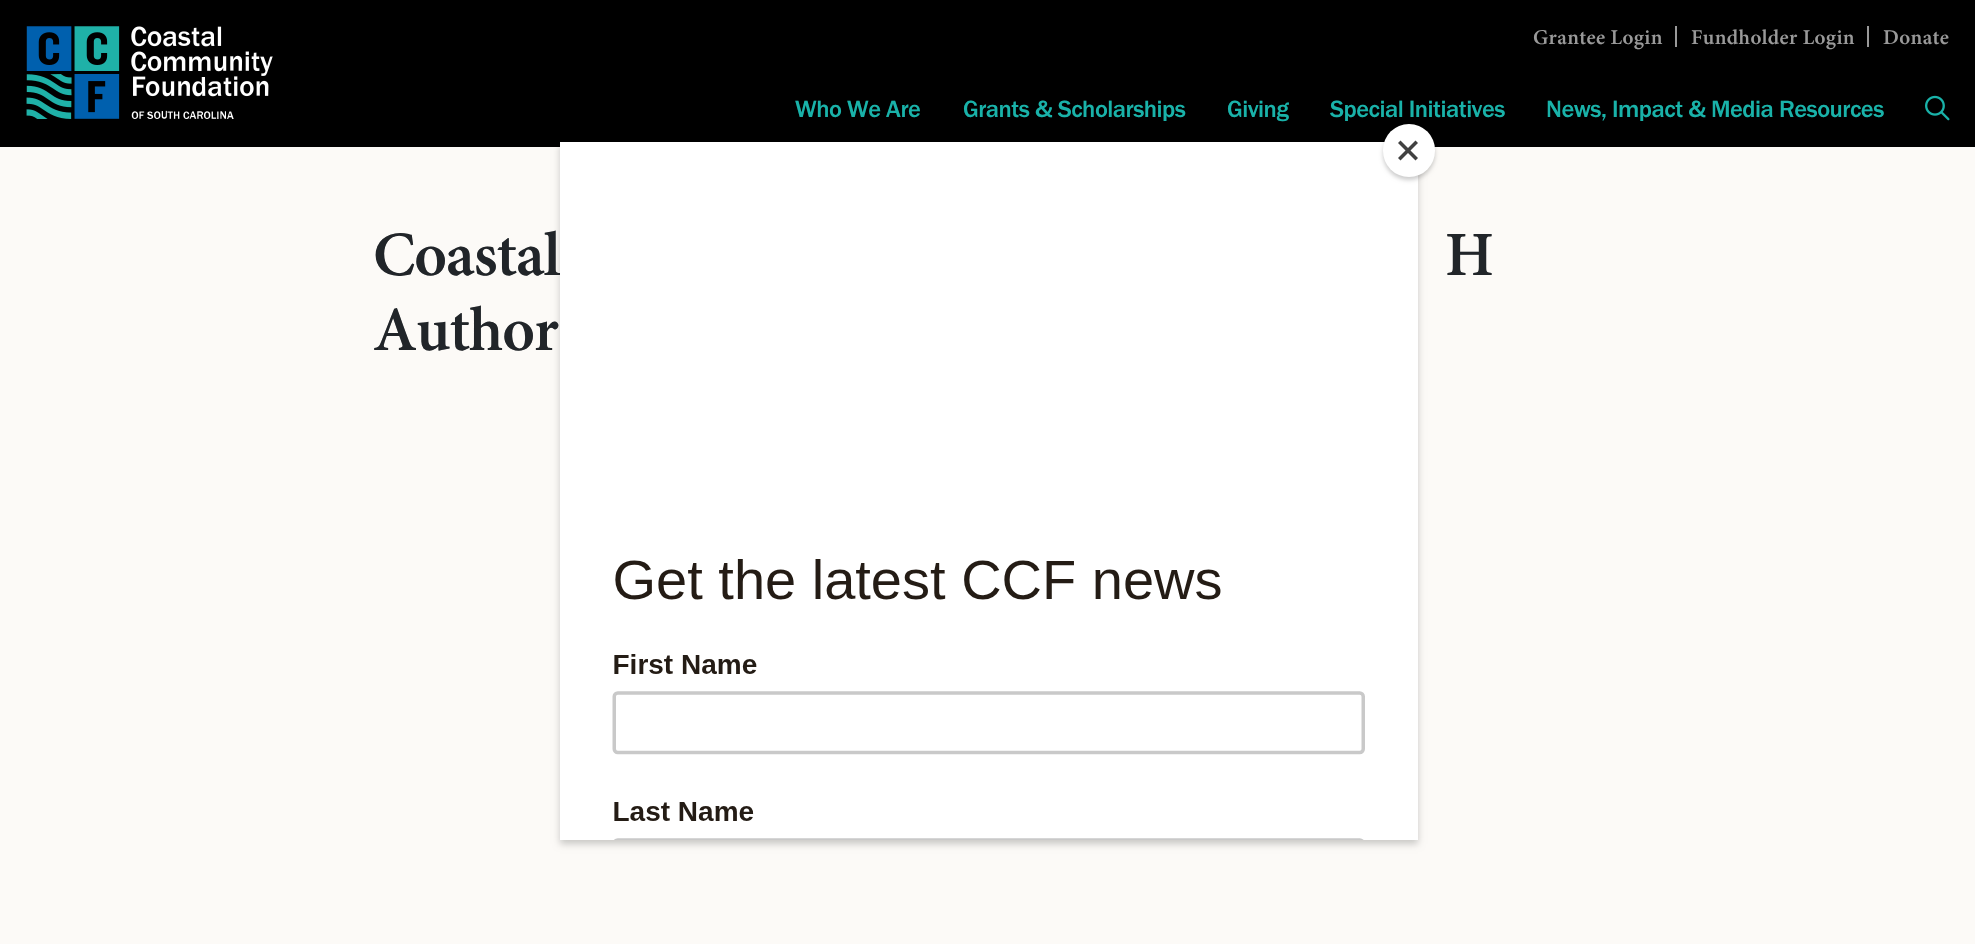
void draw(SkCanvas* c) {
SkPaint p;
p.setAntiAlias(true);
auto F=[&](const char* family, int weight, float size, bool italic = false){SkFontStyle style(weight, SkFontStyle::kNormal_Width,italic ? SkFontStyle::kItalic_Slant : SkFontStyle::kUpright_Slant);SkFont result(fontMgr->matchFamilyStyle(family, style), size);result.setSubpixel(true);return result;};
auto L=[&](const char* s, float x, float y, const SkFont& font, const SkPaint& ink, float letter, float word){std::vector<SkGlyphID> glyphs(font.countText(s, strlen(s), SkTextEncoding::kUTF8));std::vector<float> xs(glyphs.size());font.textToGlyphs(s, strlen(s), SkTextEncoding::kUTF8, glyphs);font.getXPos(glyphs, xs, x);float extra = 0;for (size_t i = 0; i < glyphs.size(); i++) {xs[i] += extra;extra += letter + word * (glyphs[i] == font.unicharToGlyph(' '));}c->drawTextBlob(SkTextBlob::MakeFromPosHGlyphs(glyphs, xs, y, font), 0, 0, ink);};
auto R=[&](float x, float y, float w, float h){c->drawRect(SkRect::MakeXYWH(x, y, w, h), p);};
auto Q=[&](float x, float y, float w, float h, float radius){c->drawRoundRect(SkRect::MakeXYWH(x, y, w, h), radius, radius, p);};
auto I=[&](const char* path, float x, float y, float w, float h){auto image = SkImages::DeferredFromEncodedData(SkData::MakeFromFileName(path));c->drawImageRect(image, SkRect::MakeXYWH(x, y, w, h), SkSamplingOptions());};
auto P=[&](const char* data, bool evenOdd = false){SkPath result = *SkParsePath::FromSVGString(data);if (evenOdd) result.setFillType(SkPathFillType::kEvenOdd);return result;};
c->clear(0xfffcfaf7);
p.setColor(0xff000000);
R(0,0,1975,147);
I("1.png",26,26,247,93);
auto f1 = F("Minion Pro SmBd",600,21);
p.setColor(0xff999999);
L("Grantee Login",1533,44,f1,p,.4,0);
R(1675,26,2,21);
L("Fundholder Login",1691,44,f1,p,.4,0);
R(1867,26,2,21);
L("Donate",1883,44,f1,p,.4,0);
auto f2 = F("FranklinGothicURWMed",400,24.5);
p.setColor(0xff19b2a9);
L("Who We Are",795,117,f2,p,-.5,0);
L("Grants & Scholarships",963,117,f2,p,-.5,0);
L("Giving",1227,117,f2,p,-.5,0);
L("Special Initiatives",1330,117,f2,p,-.5,0);
L("News, Impact & Media Resources",1546,117,f2,p,-.5,0);
I("2.png",1925,95,25,26);
p.setColor(0x33000000);
p.setMaskFilter(SkMaskFilter::MakeBlur(kNormal_SkBlurStyle, 3.5));
c->drawRect(SkRect::MakeXYWH(560,145,858,699),p);
p.setMaskFilter(nullptr);
I("3.png",560,142,858,698);
p.setMaskFilter(SkMaskFilter::MakeBlur(kNormal_SkBlurStyle, 2));
c->drawRoundRect(SkRect::MakeXYWH(1383,128,52,52),26,26,p);
p.setMaskFilter(nullptr);
p.setColor(0xffffffff);
Q(1383,124,52,53,26);
p.setColor(0xff414141);
c->drawPath(P("M1415.5 140.5l2.5 2.5l-17.5 17.5l-2.5-2.5z"),p);
c->drawPath(P("M1398 143l2.5-2.5l17.5 17.5l-2.5 2.5z"),p);
auto f3 = F("Minion Pro SmBd",600,63);
p.setColor(0xff212529);
L("Coastal",373,275,f3,p,-1,0);
L("H",1445,275,f3,p,-1,0);
L("Author",373,350,f3,p,-1,0);
}
